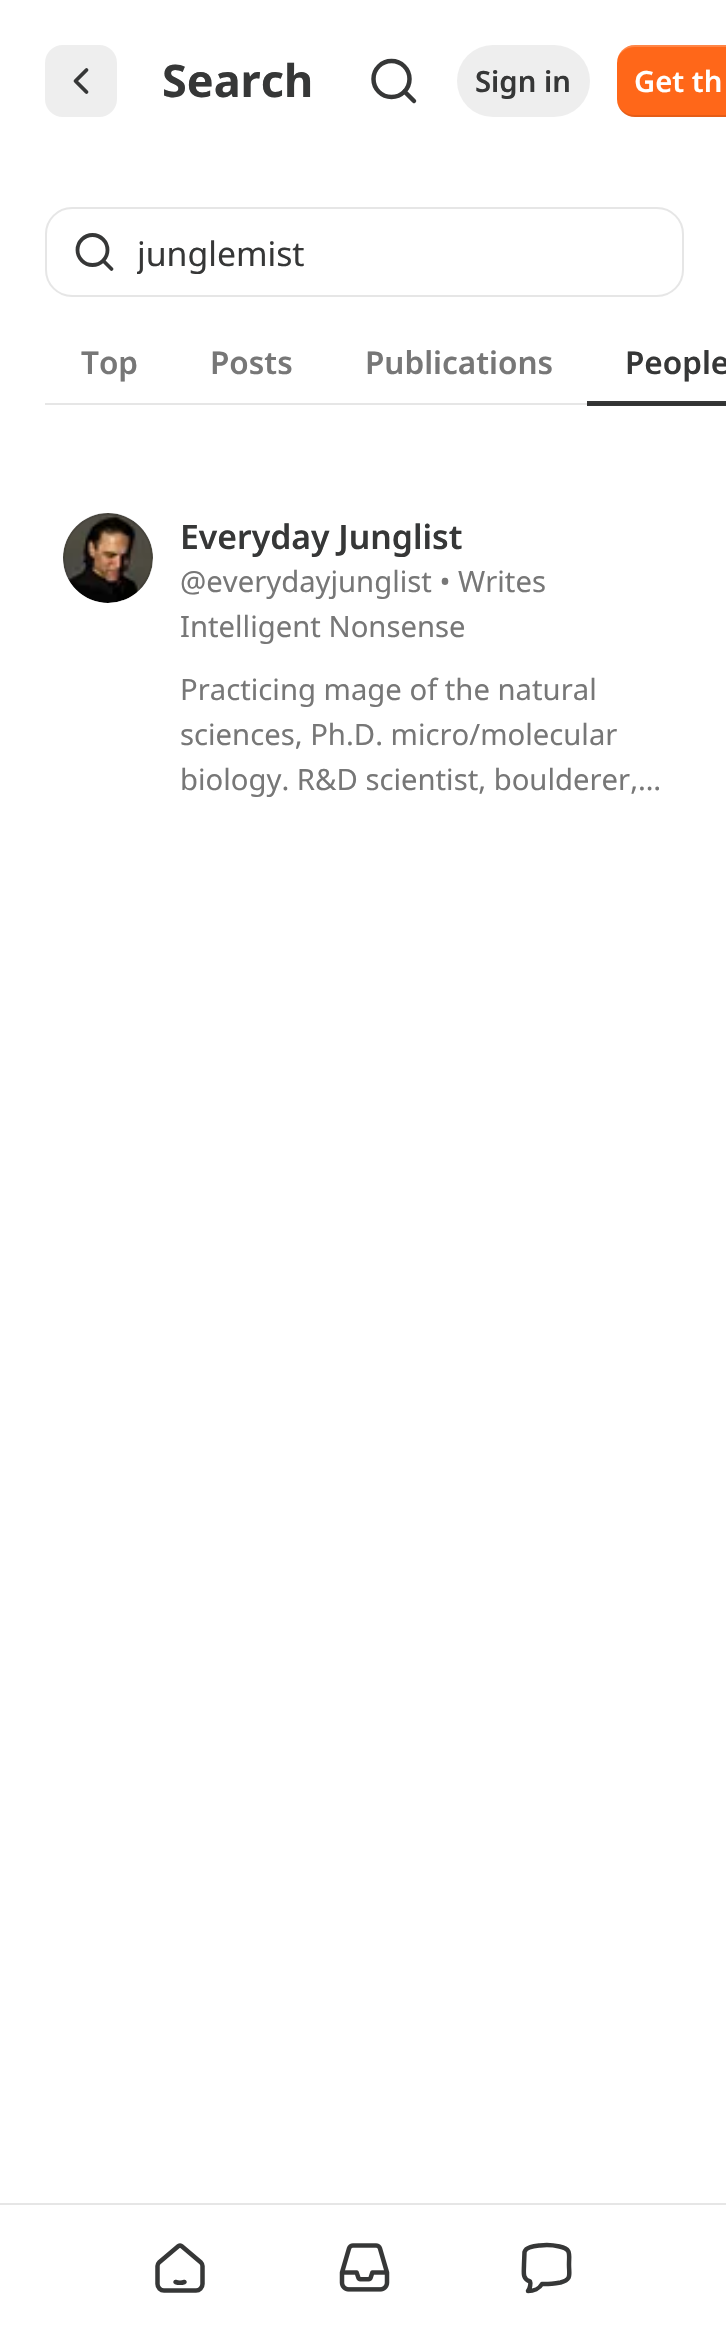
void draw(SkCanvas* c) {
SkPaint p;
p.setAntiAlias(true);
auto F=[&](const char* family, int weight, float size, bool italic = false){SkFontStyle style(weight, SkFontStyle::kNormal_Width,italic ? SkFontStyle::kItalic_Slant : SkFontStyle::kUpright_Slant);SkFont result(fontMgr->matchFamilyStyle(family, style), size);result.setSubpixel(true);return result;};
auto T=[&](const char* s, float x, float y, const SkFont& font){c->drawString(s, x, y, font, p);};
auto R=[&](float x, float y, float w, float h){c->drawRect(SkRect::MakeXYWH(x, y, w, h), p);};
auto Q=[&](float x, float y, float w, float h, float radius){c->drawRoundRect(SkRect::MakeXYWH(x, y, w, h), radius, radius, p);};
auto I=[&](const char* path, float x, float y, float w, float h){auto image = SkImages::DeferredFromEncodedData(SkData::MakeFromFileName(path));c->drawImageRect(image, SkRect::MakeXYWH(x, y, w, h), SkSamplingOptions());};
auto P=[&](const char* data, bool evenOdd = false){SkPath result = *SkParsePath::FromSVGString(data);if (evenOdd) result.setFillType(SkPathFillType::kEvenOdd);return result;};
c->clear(0xffffffff);
p.setColor(0xffe6e6e6);
R(45,403,542,2);
p.setColor(0xffeeeeee);
Q(45,45,72,72,18);
p.setStroke(true);
p.setStrokeWidth(3.8);
p.setStrokeCap(SkPaint::kRound_Cap);
p.setStrokeJoin(SkPaint::kRound_Join);
p.setColor(0xff363737);
c->drawPath(P("M86.5 92l-11-11l11-11"),p);
auto f1 = F("Noto Sans",700,45);
p.setStroke(false);
T("Search",162,97,f1);
p.setStroke(true);
p.setStrokeWidth(4.5);
p.setStrokeCap(SkPaint::kButt_Cap);
p.setStrokeJoin(SkPaint::kMiter_Join);
c->drawCircle(391.5,79,18,p);
p.setStrokeCap(SkPaint::kRound_Cap);
p.setStrokeJoin(SkPaint::kRound_Join);
c->drawPath(P("M414 101l-9.5-9.5"),p);
p.setStroke(false);
p.setColor(0xffeeeeee);
Q(457,45,133,72,36);
auto f2 = F("Noto Sans",600,29.25);
p.setColor(0xff363737);
T("Sign in",475,92,f2);
p.setColor(0xffff6719);
Q(617,45,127,72,18);
p.setColor(0x1a000000);
c->drawPath(P("M618 105c2 7 9 12 17 12h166c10 0 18-8 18-18v-2c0 10-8 18-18 18h-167c-6 0-13-4-16-10z"),p);
p.setColor(0x33ffffff);
c->drawPath(P("M634 47h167c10 0 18 8 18 18v-2c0-10-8-18-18-18h-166c-8 0-15 5-17 12c3-6 10-10 16-10z"),p);
p.setColor(0xffffffff);
T("Get th",634,92,f2);
p.setStroke(true);
p.setStrokeWidth(2);
p.setStrokeCap(SkPaint::kButt_Cap);
p.setStrokeJoin(SkPaint::kMiter_Join);
p.setColor(0xffe6e6e6);
c->drawRoundRect(SkRect::MakeXYWH(46,208,637,88),26,26,p);
p.setStrokeWidth(3.8);
p.setColor(0xff363737);
c->drawCircle(92.5,250,15,p);
p.setStrokeCap(SkPaint::kRound_Cap);
p.setStrokeJoin(SkPaint::kRound_Join);
c->drawPath(P("M111.5 269l-8-8"),p);
c->save();
c->clipRect(SkRect::MakeXYWH(137,230,468,45));
auto f3 = F("Noto Sans",400,33.75);
p.setStroke(false);
T("junglemist",137,266,f3);
c->restore();
auto f4 = F("Noto Sans",600,31.5);
p.setColor(0xff777777);
T("Top",81,374,f4);
T("Posts",210,374,f4);
T("Publications",365,374,f4);
p.setColor(0xff363737);
T("People",625,374,f4);
R(587,401,139,5);
p.setColor(0xff313232);
R(587,403,139,2);
p.setStroke(true);
p.setStrokeWidth(2);
p.setStrokeCap(SkPaint::kButt_Cap);
p.setStrokeJoin(SkPaint::kMiter_Join);
p.setColor(0x1a000000);
c->drawCircle(108,558,44,p);
p.setStroke(false);
p.setColor(0xffeeeeee);
c->drawCircle(108,558,45,p);
I("1.png",63,513,90,90);
p.setStroke(true);
p.setColor(0x1a000000);
c->drawCircle(108,558,44,p);
auto f5 = F("Noto Sans",600,33.75);
p.setStroke(false);
p.setColor(0xff363737);
T("Everyday Junglist",180,549,f5);
auto f6 = F("Noto Sans",400,29.25);
p.setColor(0xff777777);
T("@everydayjunglist • Writes",180,592,f6);
T("Intelligent Nonsense",180,637,f6);
T("Practicing mage of the natural",180,700,f6);
T("sciences, Ph.D. micro/molecular",180,745,f6);
T("biology. R&D scientist, boulderer,…",180,790,f6);
p.setColor(0xffe6e6e6);
R(0,2203,726,2);
p.setStroke(true);
p.setStrokeWidth(4.5);
p.setStrokeCap(SkPaint::kRound_Cap);
p.setStrokeJoin(SkPaint::kRound_Join);
p.setColor(0xff363737);
c->drawPath(P("M175.5 2282c3 1 6 1 9 0m-27-16v18c0 3.5 3 6.5 6.5 6.5h32c3.5 0 6.5-3 6.5-6.5v-18c0-1.5-.5-2.5-1.5-3.5l-19.5-16.5c-1-.5-2-.5-3 0l-19.5 16.5c-1 1-1.5 2-1.5 3.5z"),p);
I("2.png",339,2243,51,49);
c->drawPath(P("M528 2291c2-2.5 3-7.5 2-9.5c-8-2.5-6-9.5-6-17l.5-12.5c1.5-5.5 10.5-6 15.5-6.5c6.5-1 13-.5 19.5 1c12 2.5 9.5 7 9.5 18c0 10.5 3 15-8.5 18c-6 1-12.5 2-18.5 1.5c-2.5 4.5-8.5 7-14 7z"),p);
}
